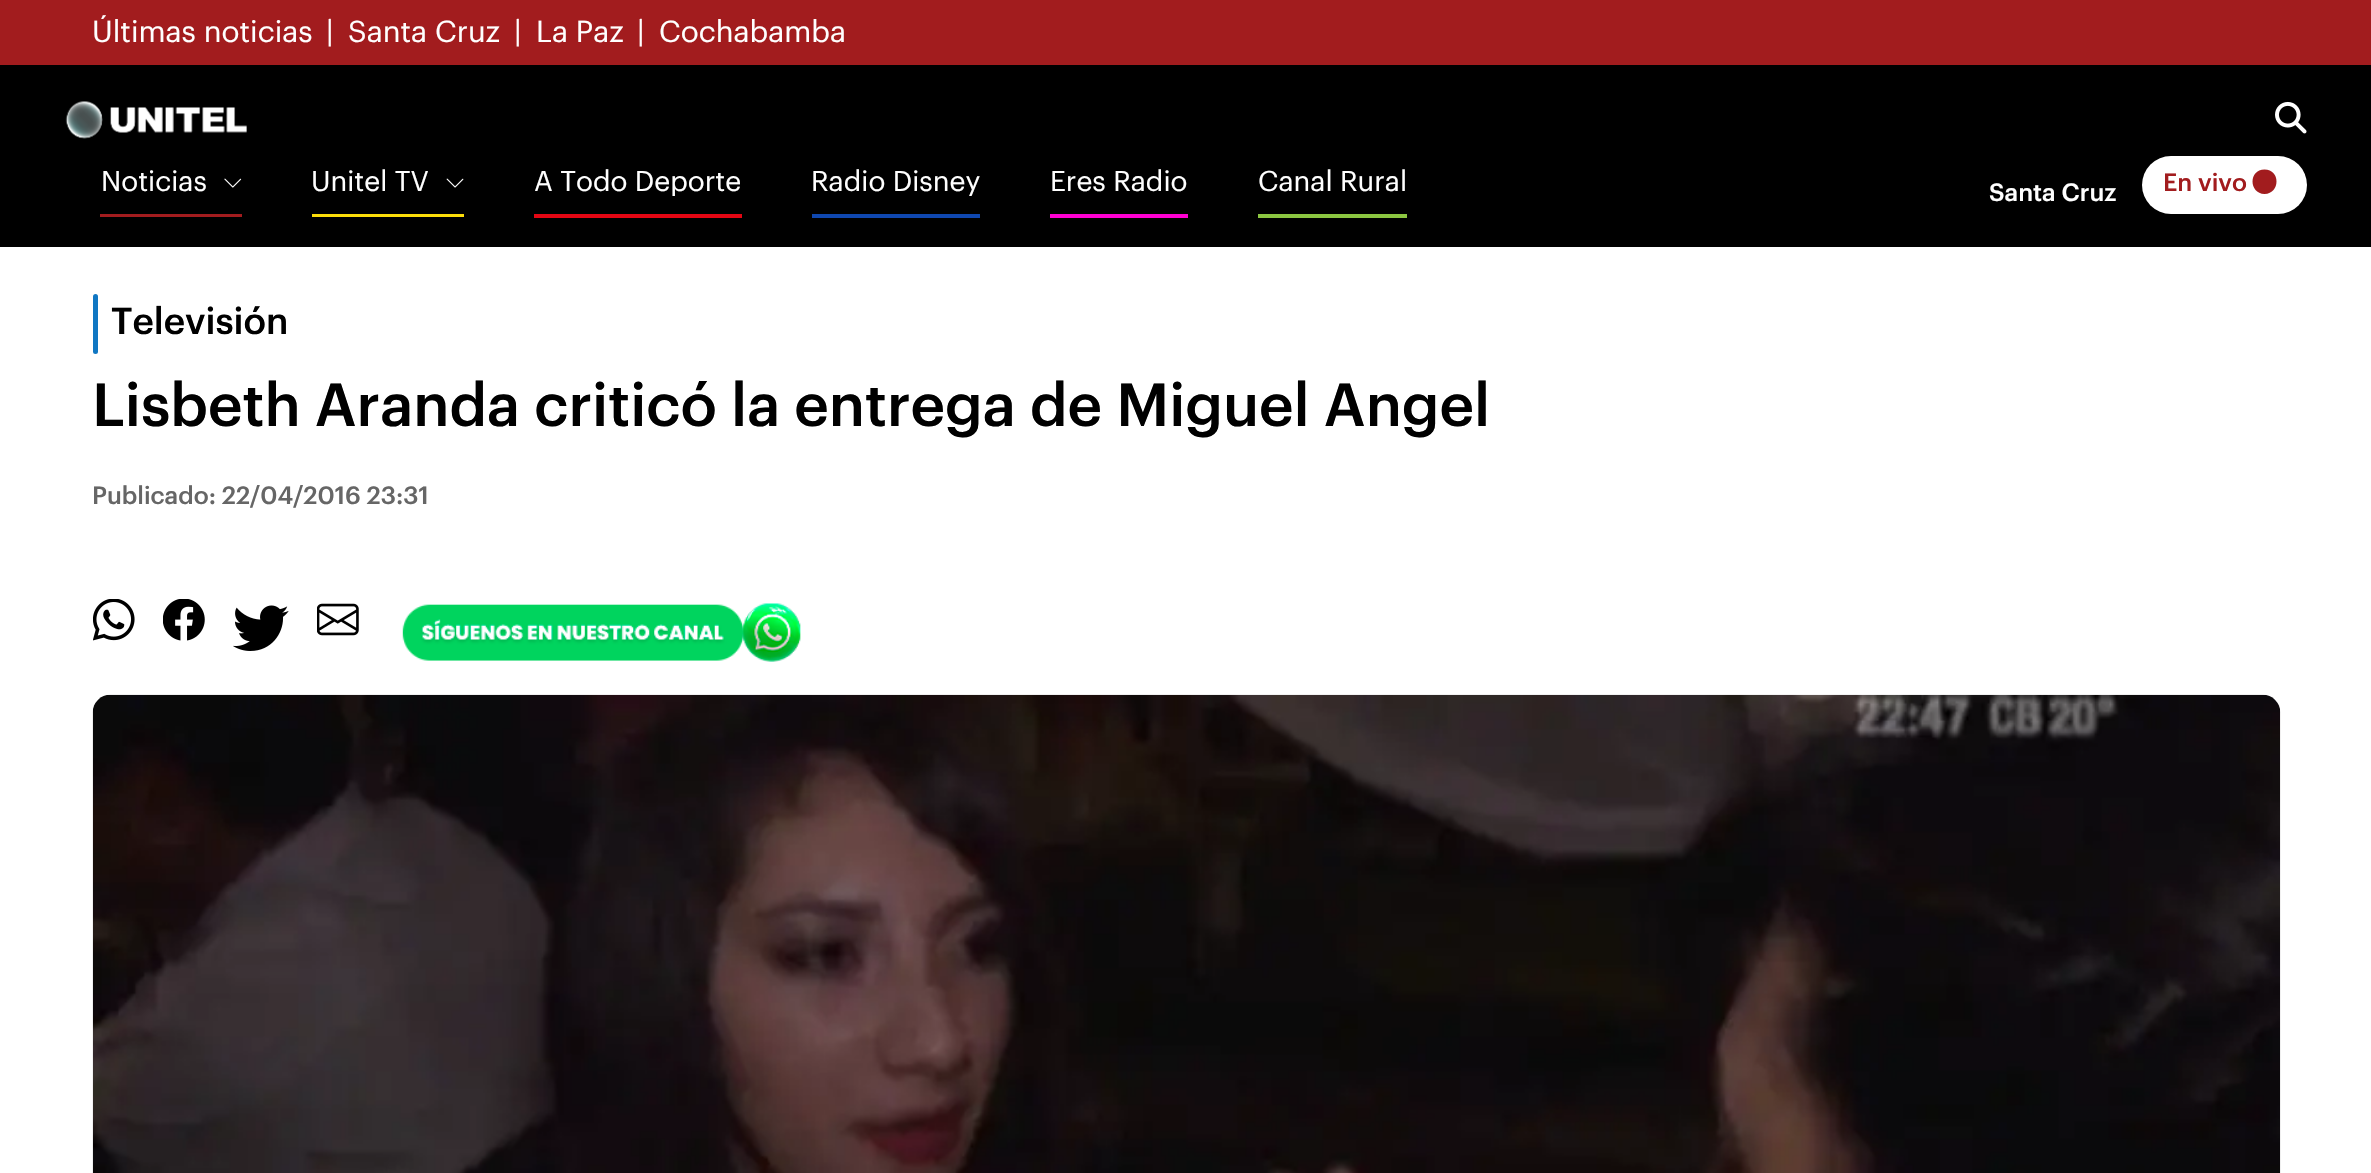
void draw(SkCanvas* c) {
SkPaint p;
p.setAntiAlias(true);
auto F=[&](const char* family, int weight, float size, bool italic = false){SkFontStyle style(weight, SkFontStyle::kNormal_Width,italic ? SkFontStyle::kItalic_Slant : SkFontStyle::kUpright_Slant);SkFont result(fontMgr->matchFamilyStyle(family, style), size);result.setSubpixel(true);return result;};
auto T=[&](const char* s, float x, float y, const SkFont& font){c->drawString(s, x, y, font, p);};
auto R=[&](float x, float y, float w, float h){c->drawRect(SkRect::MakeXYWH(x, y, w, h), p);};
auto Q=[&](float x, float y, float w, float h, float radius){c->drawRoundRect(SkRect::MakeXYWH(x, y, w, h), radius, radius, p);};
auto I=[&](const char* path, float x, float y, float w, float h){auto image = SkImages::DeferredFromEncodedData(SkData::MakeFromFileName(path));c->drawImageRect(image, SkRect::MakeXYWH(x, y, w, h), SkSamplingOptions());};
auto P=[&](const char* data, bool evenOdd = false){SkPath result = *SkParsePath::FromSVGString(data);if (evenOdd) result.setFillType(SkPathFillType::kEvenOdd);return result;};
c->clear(0xffffffff);
p.setColor(0xffa21c1e);
R(0,0,2371,65);
auto f1 = F("Graphik",400,29.75);
p.setColor(0xffffffff);
T("Últimas noticias",92,42,f1);
T("|",326,42,f1);
T("Santa Cruz",348,42,f1);
T("|",514,42,f1);
T("La Paz",536,42,f1);
T("|",637,42,f1);
T("Cochabamba",659,42,f1);
p.setColor(0xff000000);
R(0,65,2371,182);
I("1.png",65,101,182,38);
I("2.png",2275,101,32,33);
p.setColor(0xffa21c1e);
R(100,214,142,3);
auto f2 = F("Graphik",400,28);
p.setColor(0xffffffff);
T("Noticias",101,191,f2);
I("3.png",224,178,18,10);
p.setColor(0xfffcdd09);
R(312,214,152,3);
p.setColor(0xffffffff);
T("Unitel TV",311,191,f2);
I("4.png",446,178,18,10);
p.setColor(0xffe30613);
R(534,214,208,4);
p.setColor(0xffffffff);
T("A Todo Deporte",534,191,f2);
p.setColor(0xff0f47af);
R(812,214,168,4);
p.setColor(0xffffffff);
T("Radio Disney",811,191,f2);
p.setColor(0xffff00d2);
R(1050,214,138,4);
p.setColor(0xffffffff);
T("Eres Radio",1050,191,f2);
p.setColor(0xff8cc641);
R(1258,214,149,4);
p.setColor(0xffffffff);
T("Canal Rural",1258,191,f2);
auto f3 = F("Graphik",500,24.5);
T("Santa Cruz",1989,201,f3);
Q(2142,156,165,58,29);
p.setColor(0xffa21c1e);
T("En vivo",2163,191,f3);
c->drawPath(P("M2264.5 194c16-.5 16-24.5 0-24.5c-16 0-16 24 0 24.5z"),p);
p.setColor(0xff1077c3);
Q(93,294,5,60,2.5);
auto f4 = F("Graphik",500,36.75);
p.setColor(0xff000000);
T("Televisión",111,334,f4);
auto f5 = F("Graphik",500,59.5);
T("Lisbeth Aranda criticó la entrega de Miguel Angel",92,426,f5);
p.setColor(0xff666666);
T("Publicado: 22/04/2016 23:31",92,504,f3);
I("5.png",93,599,42,42);
I("6.png",163,599,42,42);
I("7.png",233,605,56,46);
I("8.png",317,603,42,33);
I("9.png",402,603,399,59);
I("10.png",92,694,2189,479);
}
